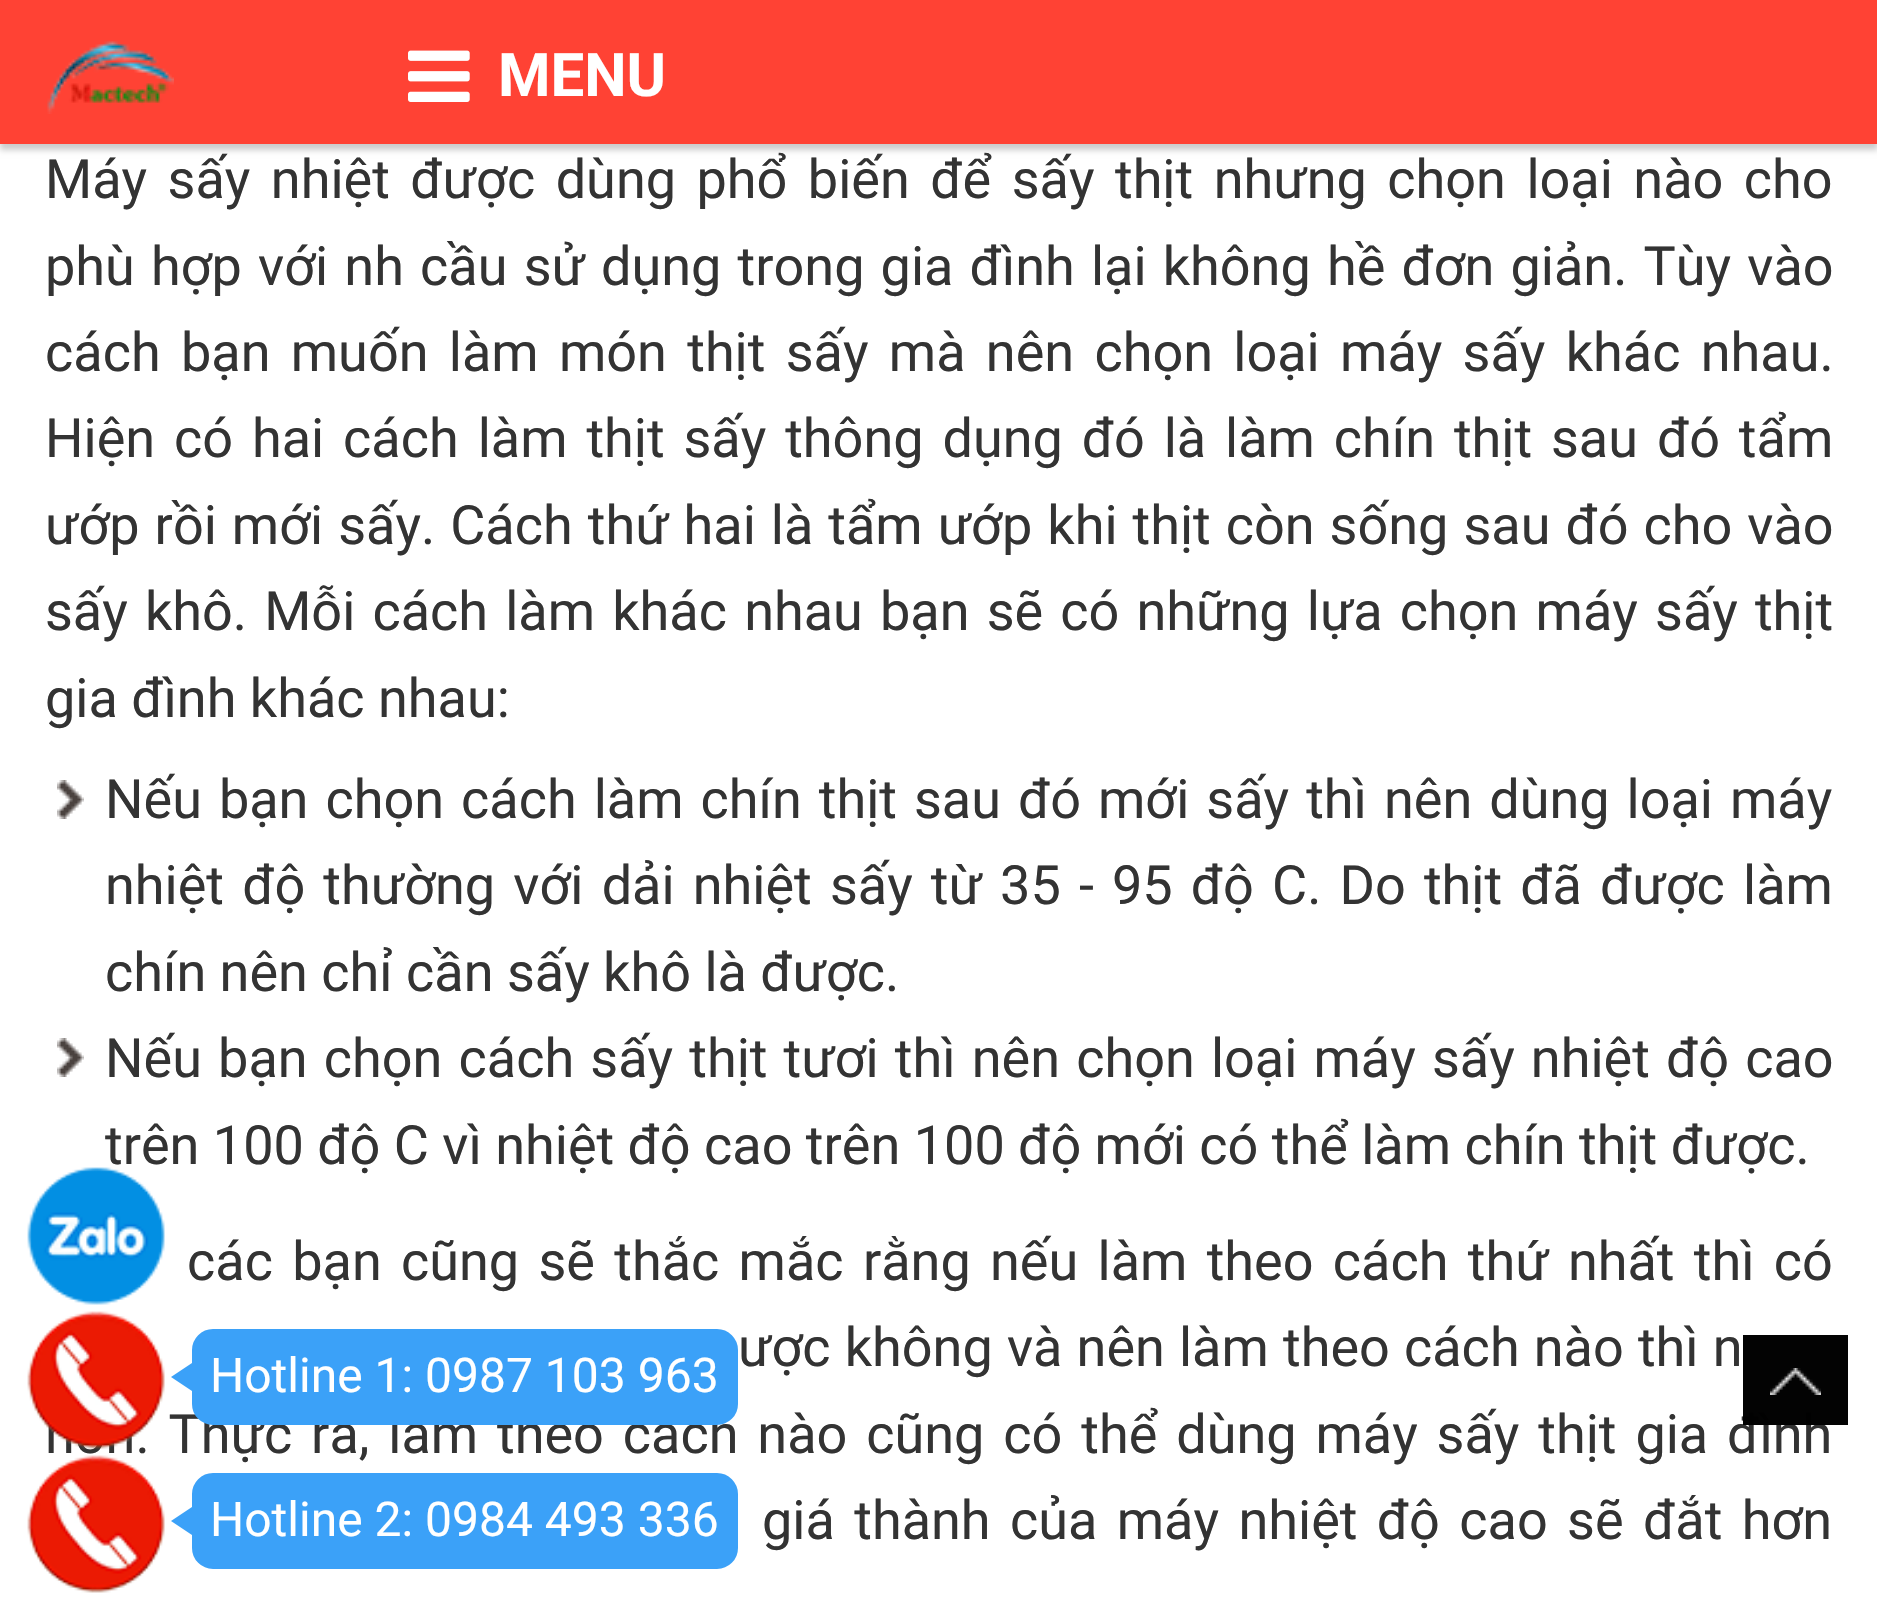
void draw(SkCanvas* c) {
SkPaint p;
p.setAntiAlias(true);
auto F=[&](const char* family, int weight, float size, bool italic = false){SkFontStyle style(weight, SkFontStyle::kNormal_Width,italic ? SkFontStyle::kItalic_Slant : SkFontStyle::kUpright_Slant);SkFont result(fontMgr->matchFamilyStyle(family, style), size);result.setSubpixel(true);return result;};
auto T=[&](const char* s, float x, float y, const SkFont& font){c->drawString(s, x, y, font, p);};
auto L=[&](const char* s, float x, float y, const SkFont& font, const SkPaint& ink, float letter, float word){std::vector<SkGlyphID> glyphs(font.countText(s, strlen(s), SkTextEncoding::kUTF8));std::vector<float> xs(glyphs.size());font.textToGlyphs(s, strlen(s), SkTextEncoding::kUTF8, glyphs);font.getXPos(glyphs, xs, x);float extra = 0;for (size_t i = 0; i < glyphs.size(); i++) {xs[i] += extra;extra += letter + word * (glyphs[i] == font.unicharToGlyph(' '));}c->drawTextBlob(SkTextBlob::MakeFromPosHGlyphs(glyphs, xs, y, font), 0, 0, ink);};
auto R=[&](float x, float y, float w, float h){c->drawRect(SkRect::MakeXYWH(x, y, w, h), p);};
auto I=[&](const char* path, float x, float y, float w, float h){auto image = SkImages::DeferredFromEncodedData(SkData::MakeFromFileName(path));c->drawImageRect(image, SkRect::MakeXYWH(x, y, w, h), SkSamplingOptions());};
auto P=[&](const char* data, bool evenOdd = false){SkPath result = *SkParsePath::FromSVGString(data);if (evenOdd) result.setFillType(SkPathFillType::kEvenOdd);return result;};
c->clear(0xffffffff);
p.setColor(0x33000000);
p.setMaskFilter(SkMaskFilter::MakeBlur(kNormal_SkBlurStyle, 3));
c->drawRect(SkRect::MakeXYWH(0,6,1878,144),p);
p.setMaskFilter(nullptr);
p.setColor(0xffff4234);
R(0,0,1877,144);
I("1.png",47,41,127,73);
I("2.png",408,50,62,52);
auto f1 = F("Roboto",700,60);
p.setColor(0xffffffff);
T("MENU",498,96,f1);
auto f2 = F("Roboto",400,54);
p.setColor(0xff333333);
L("Máy sấy nhiệt được dùng phổ biến để sấy thịt nhưng chọn loại nào cho",45,198,f2,p,0,7.1);
L("phù hợp với nh cầu sử dụng trong gia đình lại không hề đơn giản. Tùy vào",45,285,f2,p,0,2.75);
L("cách bạn muốn làm món thịt sấy mà nên chọn loại máy sấy khác nhau.",45,371,f2,p,0,6.9);
L("Hiện có hai cách làm thịt sấy thông dụng đó là làm chín thịt sau đó tẩm",45,457,f2,p,0,5.5);
L("ướp rồi mới sấy. Cách thứ hai là tẩm ướp khi thịt còn sống sau đó cho vào",45,544,f2,p,0,1.6);
L("sấy khô. Mỗi cách làm khác nhau bạn sẽ có những lựa chọn máy sấy thịt",45,630,f2,p,0,3.75);
T("gia đình khác nhau:",45,717,f2);
I("3.png",57,780,27,39);
L("Nếu bạn chọn cách làm chín thịt sau đó mới sấy thì nên dùng loại máy",105,818,f2,p,0,3.6);
L("nhiệt độ thường với dải nhiệt sấy từ 35 - 95 độ C. Do thịt đã được làm",105,904,f2,p,0,4.75);
T("chín nên chỉ cần sấy khô là được.",105,991,f2);
I("3.png",57,1038,27,39);
L("Nếu bạn chọn cách sấy thịt tươi thì nên chọn loại máy sấy nhiệt độ cao",105,1077,f2,p,0,2.75);
T("trên 100 độ C vì nhiệt độ cao trên 100 độ mới có thể làm chín thịt được.",105,1164,f2);
L("các bạn cũng sẽ thắc mắc rằng nếu làm theo cách thứ nhất thì có",187,1280,f2,p,0,5.9);
L("ược không và nên làm theo cách nào thì n",738,1366,f2,p,0,.75);
L("hơn. Thực ra, làm theo cách nào cũng có thể dùng máy sấy thịt gia đình",45,1453,f2,p,0,5.5);
L("giá thành của máy nhiệt độ cao sẽ đắt hơn",762,1539,f2,p,0,6);
I("4.png",27,1167,138,138);
I("5.png",27,1311,138,138);
p.setColor(0xff3ba1f8);
c->drawRoundRect(SkRect::MakeXYWH(193.5,1330.5,543,93),19.5,19.5,p);
p.setStroke(true);
p.setStrokeWidth(3);
c->drawRoundRect(SkRect::MakeXYWH(193.5,1330.5,543,93),19.5,19.5,p);
p.setStroke(false);
c->drawPath(P("M198 1359v36l-27-18z"),p);
auto f3 = F("Roboto",400,48);
p.setColor(0xffffffff);
T("Hotline 1: 0987 103 963",210,1392,f3);
I("6.png",27,1455,138,138);
p.setColor(0xff3ba1f8);
c->drawRoundRect(SkRect::MakeXYWH(193.5,1474.5,543,93),19.5,19.5,p);
p.setStroke(true);
c->drawRoundRect(SkRect::MakeXYWH(193.5,1474.5,543,93),19.5,19.5,p);
p.setStroke(false);
c->drawPath(P("M198 1503v36l-27-18z"),p);
p.setColor(0xffffffff);
T("Hotline 2: 0984 493 336",210,1536,f3);
p.setColor(0xfc000000);
R(1743,1335,105,90);
I("7.png",1770,1368,51,27);
}
